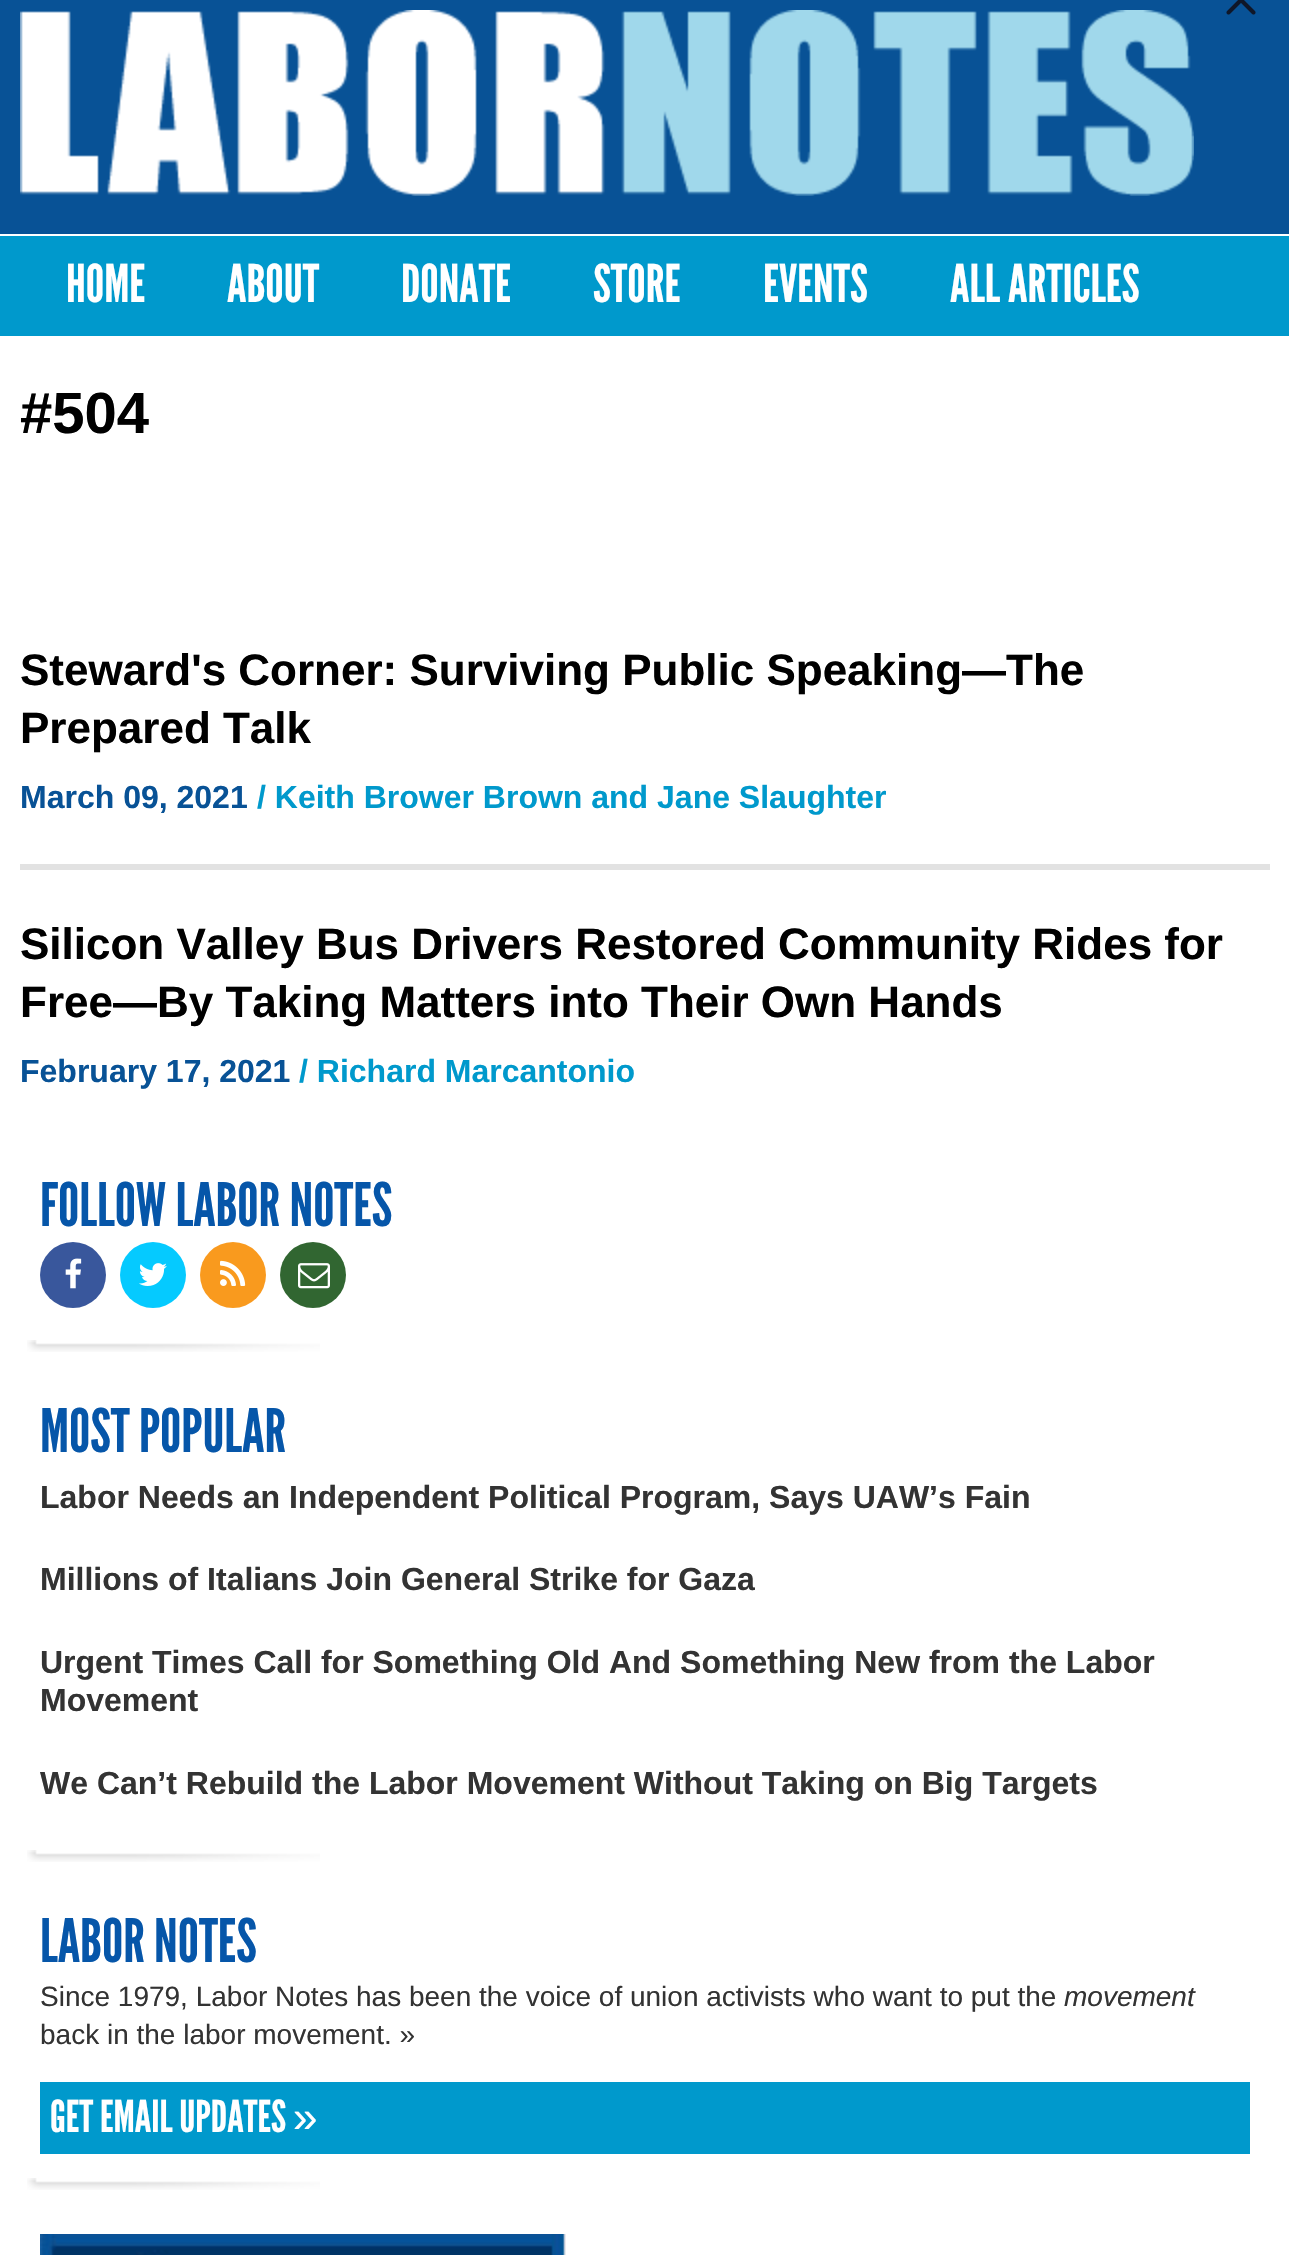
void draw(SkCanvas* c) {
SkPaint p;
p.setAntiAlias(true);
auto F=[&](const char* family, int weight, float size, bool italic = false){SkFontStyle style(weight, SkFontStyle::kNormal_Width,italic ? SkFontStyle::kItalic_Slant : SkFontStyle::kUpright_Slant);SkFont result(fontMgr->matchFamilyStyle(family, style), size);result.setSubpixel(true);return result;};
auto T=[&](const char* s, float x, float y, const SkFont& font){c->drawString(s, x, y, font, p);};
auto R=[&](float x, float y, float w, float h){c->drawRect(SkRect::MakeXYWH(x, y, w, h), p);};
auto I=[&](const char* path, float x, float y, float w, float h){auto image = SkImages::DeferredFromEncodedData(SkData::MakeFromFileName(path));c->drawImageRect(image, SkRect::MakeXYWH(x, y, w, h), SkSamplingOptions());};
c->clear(0xffffffff);
p.setColor(0xff085296);
R(0,0,1289,234);
I("1.png",20,10,1174,186);
I("2.png",1226,0,30,15);
p.setColor(0xff0099cc);
R(0,236,1289,100);
auto f1 = F("League Gothic",400,52);
p.setColor(0xffffffff);
T("HOME",66,302,f1);
T("ABOUT",227,302,f1);
T("DONATE",401,302,f1);
T("STORE",593,302,f1);
T("EVENTS",763,302,f1);
T("ALL ARTICLES",950,302,f1);
auto f2 = F("Liberation Sans",700,58);
p.setColor(0xff000000);
T("#504",20,433,f2);
p.setColor(0xffe2e2e2);
R(20,864,1250,6);
auto f3 = F("Liberation Sans",700,44);
p.setColor(0xff000000);
T("Steward's Corner: Surviving Public Speaking—The",20,685,f3);
T("Prepared Talk",20,743,f3);
auto f4 = F("Liberation Sans",700,32);
p.setColor(0xff085296);
T("March 09, 2021",20,808,f4);
p.setColor(0xff0099cc);
T("/ Keith Brower Brown and Jane Slaughter",257,808,f4);
p.setColor(0xff000000);
T("Silicon Valley Bus Drivers Restored Community Rides for",20,959,f3);
T("Free—By Taking Matters into Their Own Hands",20,1017,f3);
p.setColor(0xff085296);
T("February 17, 2021",20,1082,f4);
p.setColor(0xff0099cc);
T("/ Richard Marcantonio",299,1082,f4);
I("3.png",27,1340,293,12);
auto f5 = F("League Gothic",400,60);
p.setColor(0xff0656a9);
T("FOLLOW LABOR NOTES",40,1226,f5);
p.setColor(0xff39579c);
c->drawCircle(73,1275,33,p);
I("4.png",65,1258,17,31);
p.setColor(0xff05caff);
c->drawCircle(153,1275,33,p);
I("5.png",139,1263,28,23);
p.setColor(0xfff99a1e);
c->drawCircle(233,1275,33,p);
I("6.png",220,1260,26,26);
p.setColor(0xff316631);
c->drawCircle(313,1275,33,p);
I("7.png",298,1263,32,26);
I("3.png",27,1850,293,12);
p.setColor(0xff0656a9);
T("MOST POPULAR",40,1452,f5);
p.setColor(0xff333333);
T("Labor Needs an Independent Political Program, Says UAW’s Fain",40,1508,f4);
T("Millions of Italians Join General Strike for Gaza",40,1590,f4);
T("Urgent Times Call for Something Old And Something New from the Labor",40,1673,f4);
T("Movement",40,1711,f4);
T("We Can’t Rebuild the Labor Movement Without Taking on Big Targets",40,1794,f4);
I("3.png",27,2178,293,12);
p.setColor(0xff0656a9);
T("LABOR NOTES",40,1962,f5);
auto f6 = F("Liberation Sans",400,28);
p.setColor(0xff333333);
T("Since 1979, Labor Notes has been the voice of union activists who want to put the",40,2006,f6);
auto f7 = F("Liberation Sans",400,28,true);
T("movement",1064,2006,f7);
T("back in the labor movement. »",40,2044,f6);
p.setColor(0xff0099cc);
R(40,2082,1210,72);
auto f8 = F("League Gothic",400,44);
p.setColor(0xffffffff);
T("GET EMAIL UPDATES",50,2132,f8);
auto f9 = F("Liberation Sans",400,44);
T("»",293,2132,f9);
I("8.png",40,2234,526,21);
}
